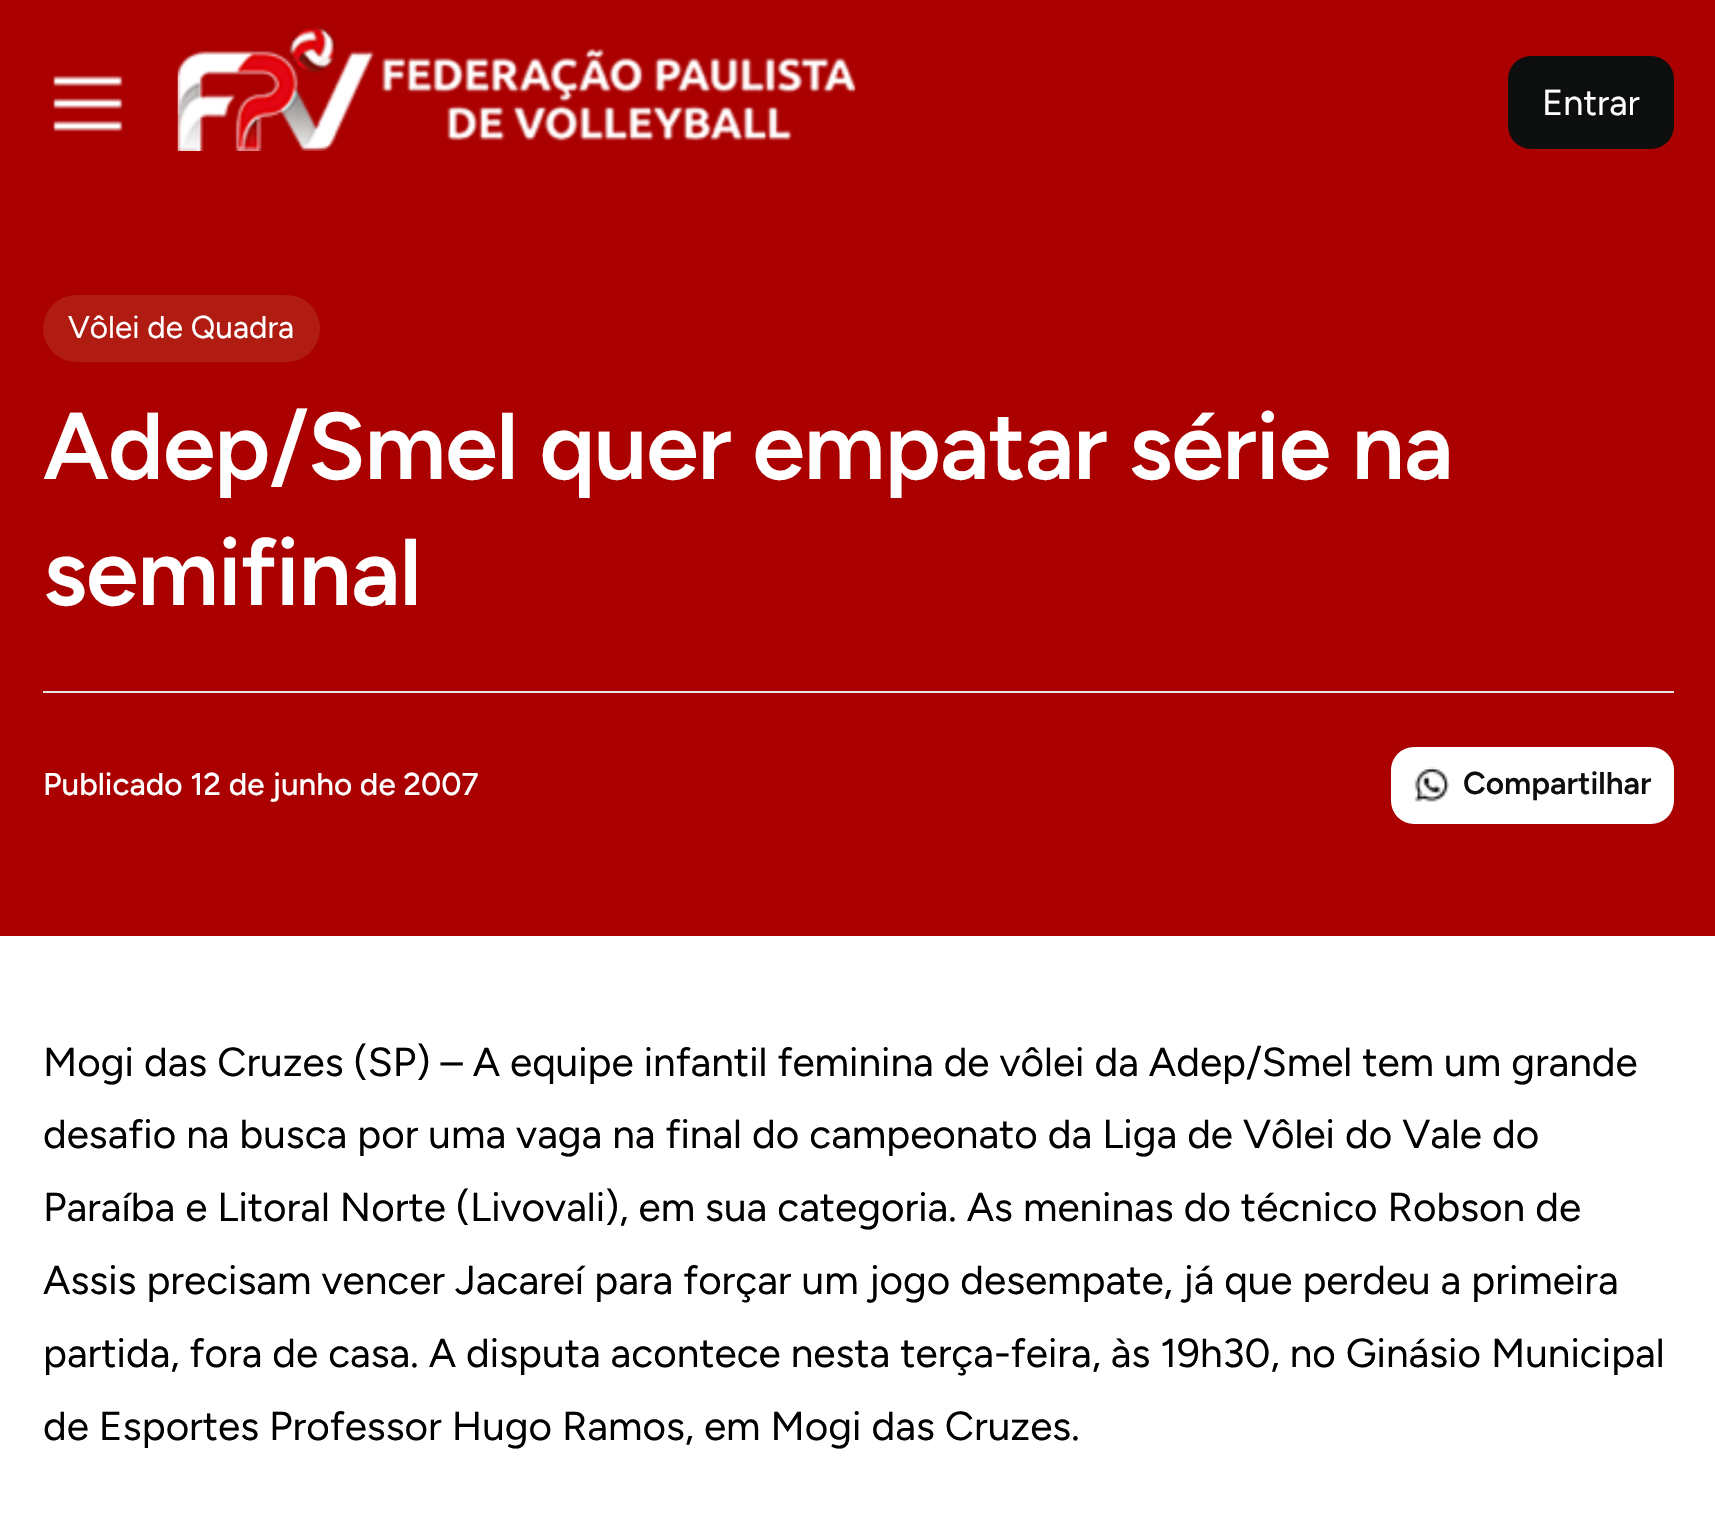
void draw(SkCanvas* c) {
SkPaint p;
p.setAntiAlias(true);
auto F=[&](const char* family, int weight, float size, bool italic = false){SkFontStyle style(weight, SkFontStyle::kNormal_Width,italic ? SkFontStyle::kItalic_Slant : SkFontStyle::kUpright_Slant);SkFont result(fontMgr->matchFamilyStyle(family, style), size);result.setSubpixel(true);return result;};
auto T=[&](const char* s, float x, float y, const SkFont& font){c->drawString(s, x, y, font, p);};
auto L=[&](const char* s, float x, float y, const SkFont& font, const SkPaint& ink, float letter, float word){std::vector<SkGlyphID> glyphs(font.countText(s, strlen(s), SkTextEncoding::kUTF8));std::vector<float> xs(glyphs.size());font.textToGlyphs(s, strlen(s), SkTextEncoding::kUTF8, glyphs);font.getXPos(glyphs, xs, x);float extra = 0;for (size_t i = 0; i < glyphs.size(); i++) {xs[i] += extra;extra += letter + word * (glyphs[i] == font.unicharToGlyph(' '));}c->drawTextBlob(SkTextBlob::MakeFromPosHGlyphs(glyphs, xs, y, font), 0, 0, ink);};
auto R=[&](float x, float y, float w, float h){c->drawRect(SkRect::MakeXYWH(x, y, w, h), p);};
auto Q=[&](float x, float y, float w, float h, float radius){c->drawRoundRect(SkRect::MakeXYWH(x, y, w, h), radius, radius, p);};
auto I=[&](const char* path, float x, float y, float w, float h){auto image = SkImages::DeferredFromEncodedData(SkData::MakeFromFileName(path));c->drawImageRect(image, SkRect::MakeXYWH(x, y, w, h), SkSamplingOptions());};
c->clear(0xffffffff);
p.setColor(0xffab0000);
R(0,0,1715,936);
I("1.png",52,75,71,57);
I("2.png",177,27,679,124);
p.setColor(0xff0d0e0e);
Q(1508,56,166,93,23);
auto f1 = F("Figtree",400,36);
p.setColor(0xffffffff);
T("Entrar",1542,115,f1);
p.setColor(0xffb01b12);
Q(43,295,277,67,33.5);
auto f2 = F("Figtree",400,31.5);
p.setColor(0xffffffff);
T("Vôlei de Quadra",68,338,f2);
auto f3 = F("Figtree",600,94.5);
L("Adep/Smel quer empatar série na",43,479,f3,p,-.95,0);
L("semifinal",43,605,f3,p,-.95,0);
p.setColor(0xffe5e5e5);
R(43,691,1631,2);
auto f4 = F("Figtree",500,31.5);
p.setColor(0xffffffff);
T("Publicado 12 de junho de 2007",43,795,f4);
Q(1391,747,283,77,23);
I("3.png",1414,767,35,35);
auto f5 = F("Figtree",600,31.5);
p.setColor(0xff0d0e0e);
T("Compartilhar",1463,794,f5);
auto f6 = F("Figtree",400,40.5);
p.setColor(0xff000000);
T("Mogi das Cruzes (SP) – A equipe infantil feminina de vôlei da Adep/Smel tem um grande",43,1076,f6);
T("desafio na busca por uma vaga na final do campeonato da Liga de Vôlei do Vale do",43,1148,f6);
T("Paraíba e Litoral Norte (Livovali), em sua categoria. As meninas do técnico Robson de",43,1221,f6);
T("Assis precisam vencer Jacareí para forçar um jogo desempate, já que perdeu a primeira",43,1294,f6);
T("partida, fora de casa. A disputa acontece nesta terça-feira, às 19h30, no Ginásio Municipal",43,1367,f6);
T("de Esportes Professor Hugo Ramos, em Mogi das Cruzes.",43,1440,f6);
}
